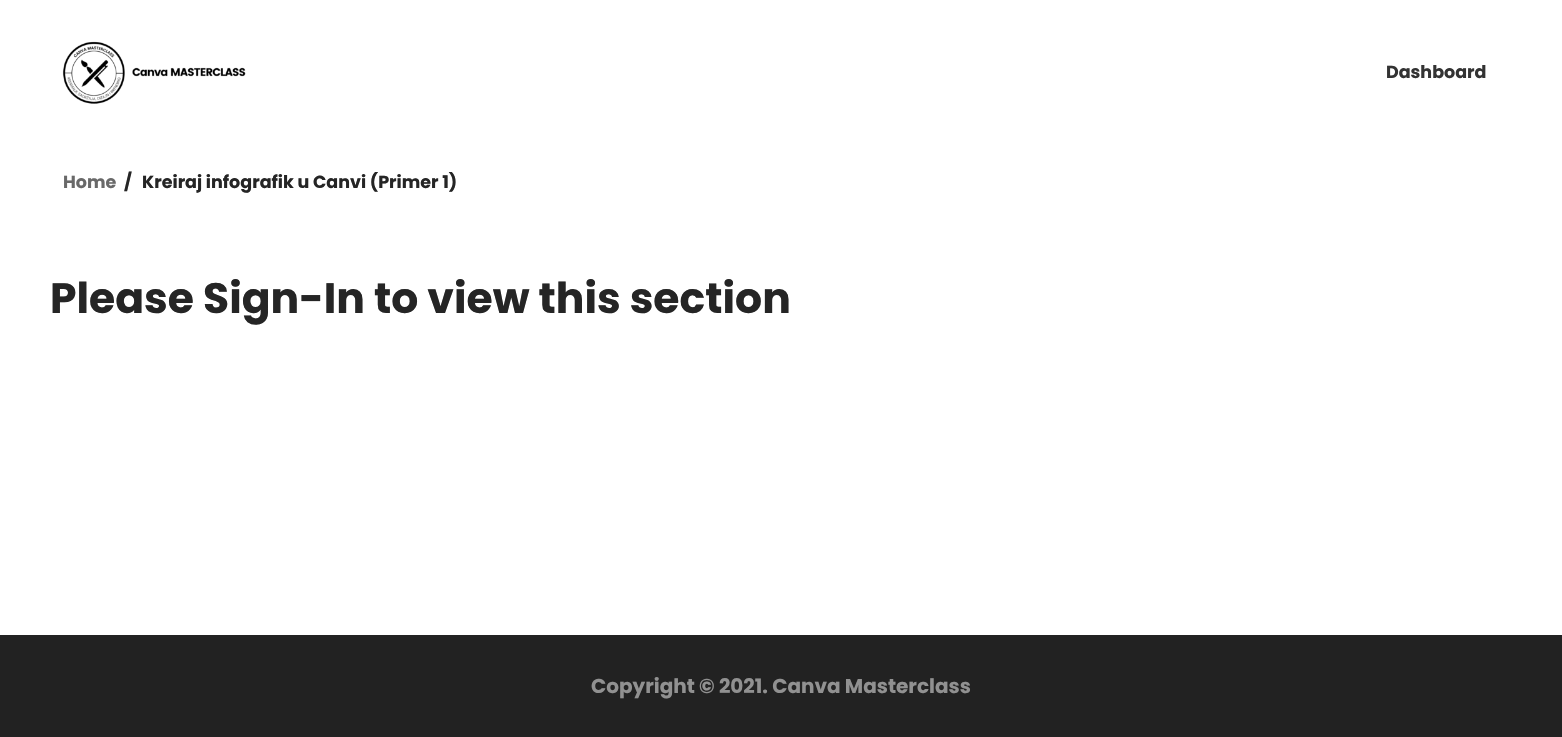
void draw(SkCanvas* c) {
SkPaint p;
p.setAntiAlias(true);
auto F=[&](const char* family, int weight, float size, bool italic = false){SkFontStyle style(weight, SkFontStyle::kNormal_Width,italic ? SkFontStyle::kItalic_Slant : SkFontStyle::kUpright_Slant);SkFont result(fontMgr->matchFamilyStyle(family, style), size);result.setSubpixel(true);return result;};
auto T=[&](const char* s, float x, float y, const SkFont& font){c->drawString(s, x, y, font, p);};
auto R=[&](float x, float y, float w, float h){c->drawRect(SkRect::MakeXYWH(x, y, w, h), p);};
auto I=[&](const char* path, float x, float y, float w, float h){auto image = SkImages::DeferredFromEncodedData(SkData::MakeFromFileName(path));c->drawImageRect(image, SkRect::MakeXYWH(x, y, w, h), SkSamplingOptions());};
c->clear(0xffffffff);
I("1.png",62,41,184,63);
auto f1 = F("Poppins",700,17.5);
p.setColor(0xff333333);
T("Dashboard",1386,78,f1);
p.setColor(0xff696969);
T("Home",63,188,f1);
p.setColor(0xff252525);
T("/",124,188,f1);
T("Kreiraj infografik u Canvi (Primer 1)",142,188,f1);
auto f2 = F("Poppins",700,42.5);
T("Please Sign-In to view this section",50,313,f2);
p.setColor(0xff222222);
R(0,635,1562,102);
auto f3 = F("Poppins",700,20);
p.setColor(0xff919191);
T("Copyright © 2021. Canva Masterclass",591,693,f3);
}
